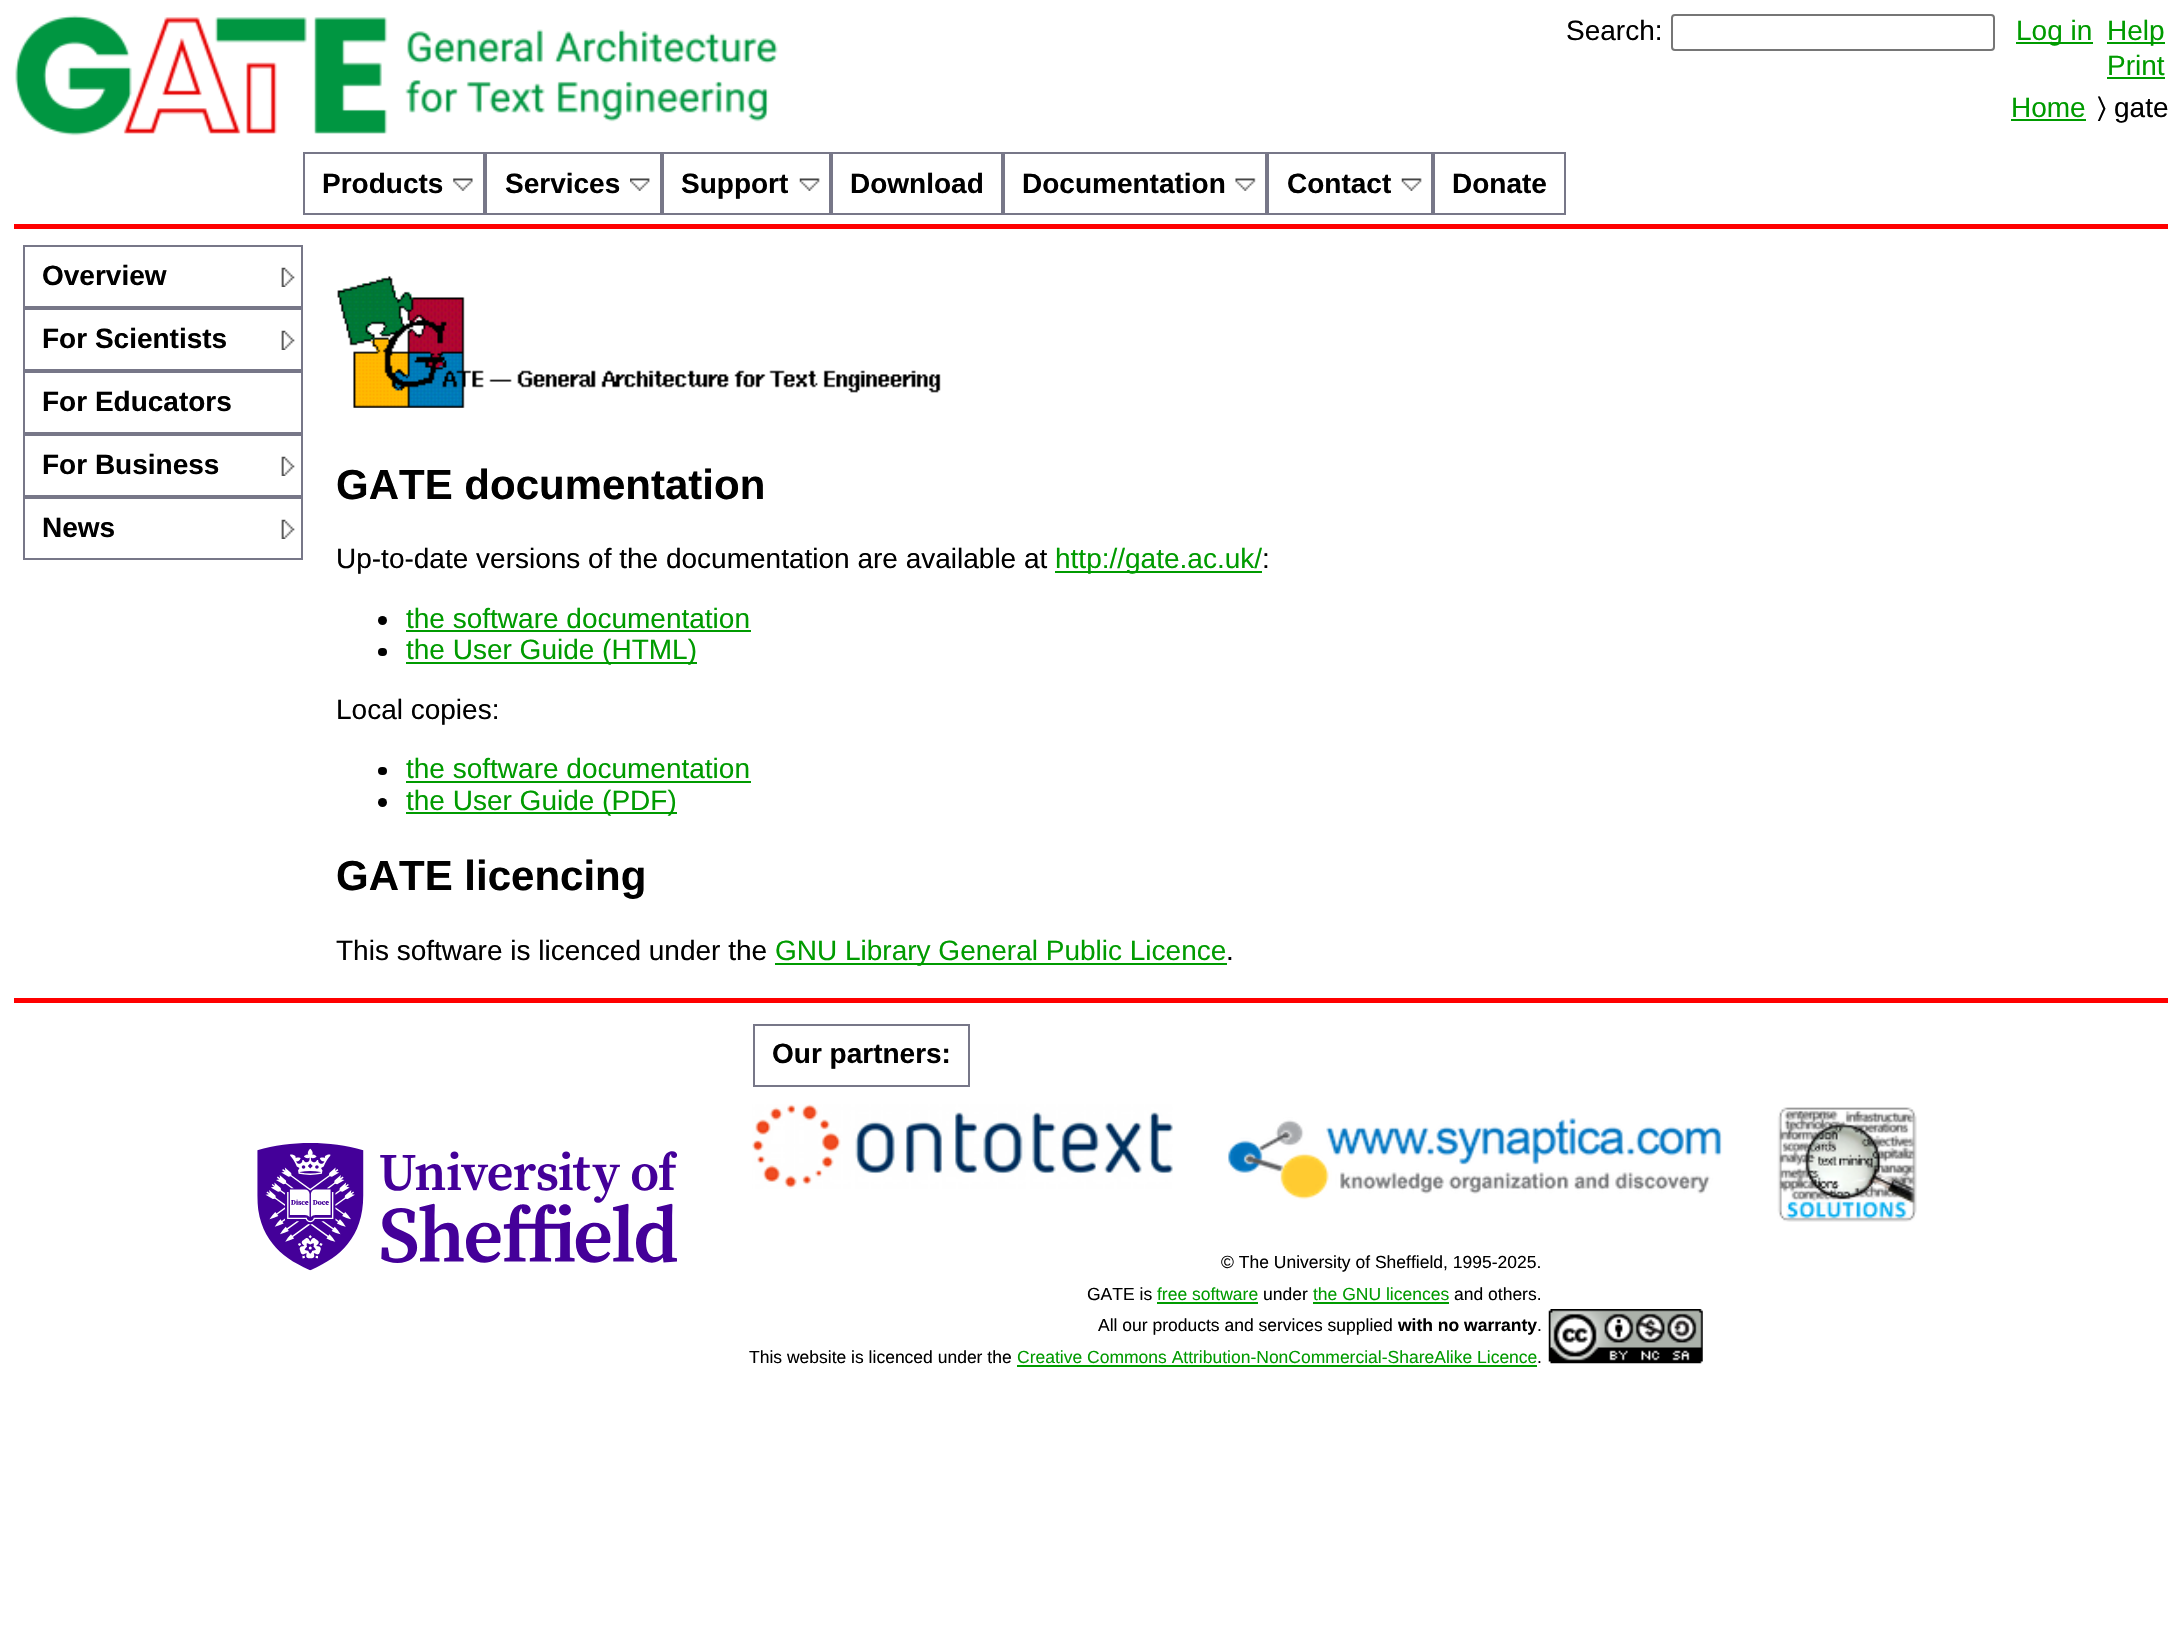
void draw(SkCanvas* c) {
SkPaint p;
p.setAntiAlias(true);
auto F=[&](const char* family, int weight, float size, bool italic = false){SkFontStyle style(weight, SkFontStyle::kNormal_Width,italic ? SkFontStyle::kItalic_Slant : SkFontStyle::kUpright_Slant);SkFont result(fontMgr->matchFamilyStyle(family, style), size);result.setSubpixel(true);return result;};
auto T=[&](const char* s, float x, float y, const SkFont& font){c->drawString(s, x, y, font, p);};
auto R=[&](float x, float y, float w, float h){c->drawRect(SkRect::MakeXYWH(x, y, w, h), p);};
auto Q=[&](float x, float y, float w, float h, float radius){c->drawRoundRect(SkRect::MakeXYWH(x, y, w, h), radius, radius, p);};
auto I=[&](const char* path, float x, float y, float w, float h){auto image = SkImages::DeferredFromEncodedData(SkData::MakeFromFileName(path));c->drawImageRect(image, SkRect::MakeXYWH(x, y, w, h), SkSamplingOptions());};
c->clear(0xffffffff);
I("1.png",15,15,763,121);
auto f1 = F("Liberation Sans",400,28);
p.setColor(0xff000000);
T("Search:",1566,40,f1);
p.setStroke(true);
p.setStrokeWidth(2);
p.setColor(0xff767676);
c->drawRoundRect(SkRect::MakeXYWH(1672,15,322,35),3,3,p);
p.setStroke(false);
p.setColor(0xff009b00);
R(2016,42,77,2);
T("Log in",2016,40,f1);
R(2107,42,58,2);
T("Help",2107,40,f1);
T("Print",2107,75,f1);
R(2107,77,58,2);
T("Home",2011,117,f1);
R(2011,119,75,2);
auto f2 = F("FreeSans",400,28);
p.setColor(0xff000000);
T("〉",2097,117,f2);
T("gate",2114,117,f1);
p.setColor(0xffff0000);
R(14,224,2154,5);
I("2.png",453,178,20,13);
p.setStroke(true);
p.setColor(0xff777788);
c->drawRect(SkRect::MakeXYWH(304,153,180,61),p);
auto f3 = F("Liberation Sans",700,28);
p.setStroke(false);
p.setColor(0xff000000);
T("Products",322,193,f3);
I("3.png",630,178,20,13);
p.setStroke(true);
p.setColor(0xff777788);
c->drawRect(SkRect::MakeXYWH(486,153,175,61),p);
p.setStroke(false);
p.setColor(0xff000000);
T("Services",505,193,f3);
I("4.png",799,178,21,13);
p.setStroke(true);
p.setColor(0xff777788);
c->drawRect(SkRect::MakeXYWH(663,153,167,61),p);
p.setStroke(false);
p.setColor(0xff000000);
T("Support",681,193,f3);
p.setStroke(true);
p.setColor(0xff777788);
c->drawRect(SkRect::MakeXYWH(832,153,170,61),p);
p.setStroke(false);
p.setColor(0xff000000);
T("Download",850,193,f3);
I("5.png",1235,178,21,13);
p.setStroke(true);
p.setColor(0xff777788);
c->drawRect(SkRect::MakeXYWH(1004,153,262,61),p);
p.setStroke(false);
p.setColor(0xff000000);
T("Documentation",1022,193,f3);
I("6.png",1401,178,21,13);
p.setStroke(true);
p.setColor(0xff777788);
c->drawRect(SkRect::MakeXYWH(1268,153,164,61),p);
p.setStroke(false);
p.setColor(0xff000000);
T("Contact",1287,193,f3);
p.setStroke(true);
p.setColor(0xff777788);
c->drawRect(SkRect::MakeXYWH(1434,153,131,61),p);
p.setStroke(false);
p.setColor(0xff000000);
T("Donate",1452,193,f3);
I("7.png",281,267,14,20);
p.setStroke(true);
p.setColor(0xff777788);
c->drawRect(SkRect::MakeXYWH(24,246,278,61),p);
p.setStroke(false);
p.setColor(0xff000000);
T("Overview",42,285,f3);
I("7.png",281,330,14,20);
p.setStroke(true);
p.setColor(0xff777788);
c->drawRect(SkRect::MakeXYWH(24,309,278,61),p);
p.setStroke(false);
p.setColor(0xff000000);
T("For Scientists",42,348,f3);
p.setStroke(true);
p.setColor(0xff777788);
c->drawRect(SkRect::MakeXYWH(24,372,278,61),p);
p.setStroke(false);
p.setColor(0xff000000);
T("For Educators",42,411,f3);
I("7.png",281,456,14,20);
p.setStroke(true);
p.setColor(0xff777788);
c->drawRect(SkRect::MakeXYWH(24,435,278,61),p);
p.setStroke(false);
p.setColor(0xff000000);
T("For Business",42,474,f3);
I("7.png",281,519,14,20);
p.setStroke(true);
p.setColor(0xff777788);
c->drawRect(SkRect::MakeXYWH(24,498,278,61),p);
p.setStroke(false);
p.setColor(0xff000000);
T("News",42,537,f3);
I("8.png",337,276,604,132);
auto f4 = F("Liberation Sans",700,42);
T("GATE documentation",336,499,f4);
T("Up-to-date versions of the documentation are available at",336,568,f1);
p.setColor(0xff009b00);
R(1055,571,207,2);
T("http://gate.ac.uk/",1055,568,f1);
p.setColor(0xff000000);
T(":",1262,568,f1);
c->drawCircle(382.5,620.5,4.5,p);
p.setColor(0xff009b00);
T("the software documentation",406,628,f1);
R(406,630,345,2);
p.setColor(0xff000000);
Q(378,648,9,8,4);
p.setColor(0xff009b00);
R(406,662,291,2);
T("the User Guide (HTML)",406,659,f1);
p.setColor(0xff000000);
T("Local copies:",336,719,f1);
Q(378,767,9,8,4);
p.setColor(0xff009b00);
T("the software documentation",406,778,f1);
R(406,781,345,2);
p.setColor(0xff000000);
c->drawCircle(382.5,802.5,4.5,p);
p.setColor(0xff009b00);
R(406,812,271,2);
T("the User Guide (PDF)",406,810,f1);
p.setColor(0xff000000);
T("GATE licencing",336,890,f4);
T("This software is licenced under the",336,960,f1);
p.setColor(0xff009b00);
R(775,963,452,2);
T("GNU Library General Public Licence",775,960,f1);
p.setColor(0xff000000);
T(".",1226,960,f1);
p.setColor(0xffff0000);
R(14,998,2154,5);
p.setStroke(true);
p.setColor(0xff777788);
c->drawRect(SkRect::MakeXYWH(754,1025,215,61),p);
p.setStroke(false);
p.setColor(0xff000000);
T("Our partners:",772,1063,f3);
I("9.png",257,1143,420,128);
I("10.png",752,1104,421,85);
I("11.png",1228,1117,494,83);
I("12.png",1777,1107,140,115);
auto f5 = F("Liberation Sans",400,17.5);
T("© The University of Sheffield, 1995-2025.",1221,1268,f5);
T("GATE is",1087,1300,f5);
p.setColor(0xff009b00);
T("free software",1157,1300,f5);
R(1157,1302,101,2);
p.setColor(0xff000000);
T("under",1263,1300,f5);
p.setColor(0xff009b00);
T("the GNU licences",1313,1300,f5);
R(1313,1302,136,2);
p.setColor(0xff000000);
T("and others.",1454,1300,f5);
T("All our products and services supplied",1098,1331,f5);
auto f6 = F("Liberation Sans",700,17.5);
T("with no warranty",1398,1331,f6);
T(".",1537,1331,f5);
T("This website is licenced under the",749,1363,f5);
p.setColor(0xff009b00);
T("Creative Commons Attribution-NonCommercial-ShareAlike Licence",1017,1363,f5);
p.setColor(0xff000000);
T(".",1537,1363,f5);
p.setColor(0xff009b00);
R(1017,1365,520,2);
I("13.png",1548,1309,155,55);
}
